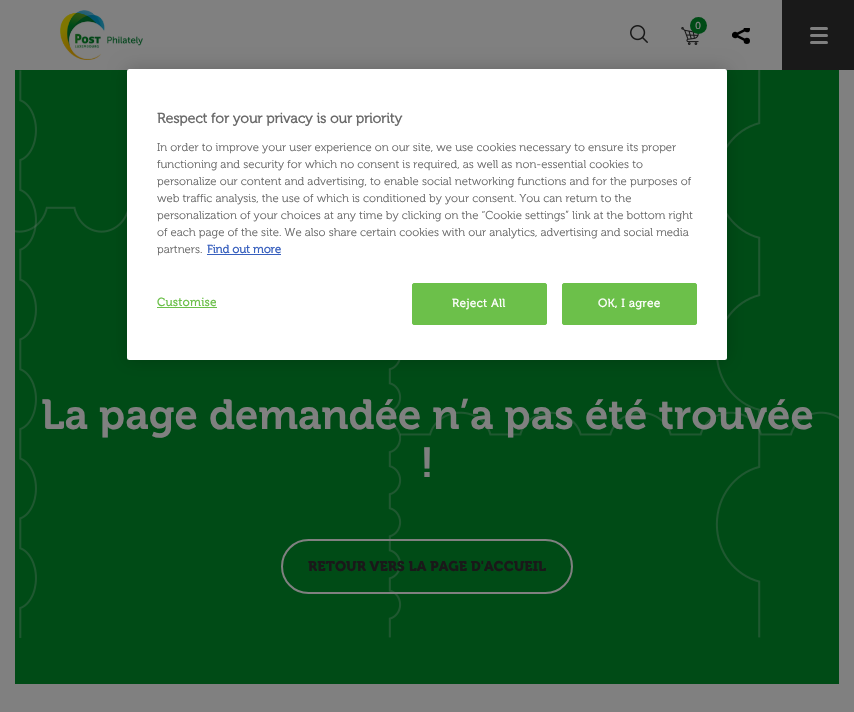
void draw(SkCanvas* c) {
SkPaint p;
p.setAntiAlias(true);
auto F=[&](const char* family, int weight, float size, bool italic = false){SkFontStyle style(weight, SkFontStyle::kNormal_Width,italic ? SkFontStyle::kItalic_Slant : SkFontStyle::kUpright_Slant);SkFont result(fontMgr->matchFamilyStyle(family, style), size);result.setSubpixel(true);return result;};
auto T=[&](const char* s, float x, float y, const SkFont& font){c->drawString(s, x, y, font, p);};
auto L=[&](const char* s, float x, float y, const SkFont& font, const SkPaint& ink, float letter, float word){std::vector<SkGlyphID> glyphs(font.countText(s, strlen(s), SkTextEncoding::kUTF8));std::vector<float> xs(glyphs.size());font.textToGlyphs(s, strlen(s), SkTextEncoding::kUTF8, glyphs);font.getXPos(glyphs, xs, x);float extra = 0;for (size_t i = 0; i < glyphs.size(); i++) {xs[i] += extra;extra += letter + word * (glyphs[i] == font.unicharToGlyph(' '));}c->drawTextBlob(SkTextBlob::MakeFromPosHGlyphs(glyphs, xs, y, font), 0, 0, ink);};
auto R=[&](float x, float y, float w, float h){c->drawRect(SkRect::MakeXYWH(x, y, w, h), p);};
auto Q=[&](float x, float y, float w, float h, float radius){c->drawRoundRect(SkRect::MakeXYWH(x, y, w, h), radius, radius, p);};
auto I=[&](const char* path, float x, float y, float w, float h){auto image = SkImages::DeferredFromEncodedData(SkData::MakeFromFileName(path));c->drawImageRect(image, SkRect::MakeXYWH(x, y, w, h), SkSamplingOptions());};
c->clear(0xff808080);
I("1.png",60,10,83,50);
I("2.png",630,25,18,18);
I("3.png",681,27,18,18);
p.setColor(0xff004b16);
c->drawCircle(698.5,25.5,8.5,p);
auto f1 = F("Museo",400,10);
p.setColor(0xff808080);
T("0",695,29,f1);
I("4.png",732,28,18,16);
p.setColor(0xff191919);
R(782,0,72,70);
p.setColor(0xff808080);
Q(810,34,18,3,1.5);
Q(810,27,18,3,1.5);
Q(810,41,18,3,1.5);
p.setColor(0xff004b16);
R(15,70,824,614);
I("5.png",15,70,824,568);
p.setColor(0x33000000);
p.setMaskFilter(SkMaskFilter::MakeBlur(kNormal_SkBlurStyle, 9));
c->drawRoundRect(SkRect::MakeXYWH(127,69,600,291),2.5,2.5,p);
p.setMaskFilter(nullptr);
p.setColor(0xffffffff);
Q(127,69,600,291,2.5);
auto f2 = F("Museo",700,14);
p.setColor(0xff696969);
T("Respect for your privacy is our priority",157,123,f2);
auto f3 = F("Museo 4",400,11.4);
T("In order to improve your user experience on our site, we use cookies necessary to ensure its proper",157,151,f3);
T("functioning and security for which no consent is required, as well as non-essential cookies to",157,168,f3);
T("personalize our content and advertising, to enable social networking functions and for the purposes of",157,185,f3);
T("web traffic analysis, the use of which is conditioned by your consent. You can return to the",157,202,f3);
T("personalization of your choices at any time by clicking on the “Cookie settings” link at the bottom right",157,219,f3);
T("of each page of the site. We also share certain cookies with our analytics, advertising and social media",157,236,f3);
T("partners.",157,253,f3);
auto f4 = F("Museo",700,11.4);
p.setColor(0xff3860be);
T("Find out more",207,253,f4);
R(207,254,74,1);
p.setColor(0xff6cc04a);
L("Customise",157,306,f4,p,.5,0);
R(157,307,60,1);
c->drawRoundRect(SkRect::MakeXYWH(412.5,283.5,134,41),1.5,1.5,p);
p.setStroke(true);
p.setStrokeWidth(1);
c->drawRoundRect(SkRect::MakeXYWH(412.5,283.5,134,41),1.5,1.5,p);
p.setStroke(false);
p.setColor(0xffffffff);
L("Reject All",452,307,f4,p,.5,0);
p.setColor(0xff6cc04a);
c->drawRoundRect(SkRect::MakeXYWH(562.5,283.5,134,41),1.5,1.5,p);
p.setStroke(true);
c->drawRoundRect(SkRect::MakeXYWH(562.5,283.5,134,41),1.5,1.5,p);
p.setStroke(false);
p.setColor(0xffffffff);
L("OK, I agree",598,307,f4,p,.5,0);
auto f5 = F("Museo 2",400,42);
p.setColor(0xff808080);
T("La page demandée n’a pas été trouvée",41,429,f5);
T("!",420,477,f5);
p.setStroke(true);
p.setStrokeWidth(2);
c->drawRoundRect(SkRect::MakeXYWH(282,540,290,53),26.5,26.5,p);
auto f6 = F("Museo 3",400,14);
p.setStroke(false);
p.setColor(0xff191919);
T("RETOUR VERS LA PAGE D'ACCUEIL",308,571,f6);
}
